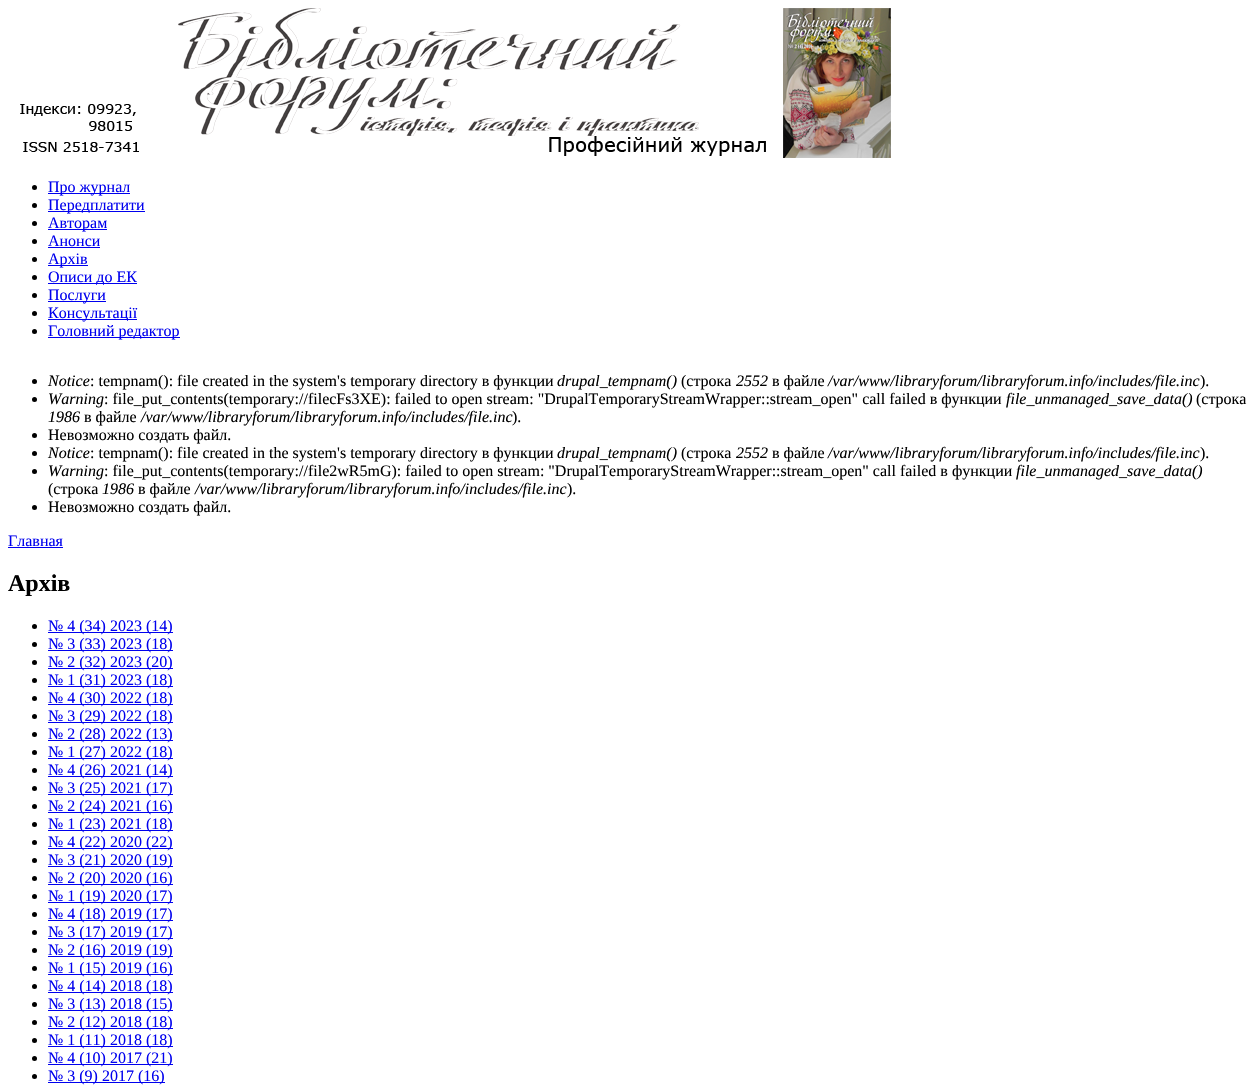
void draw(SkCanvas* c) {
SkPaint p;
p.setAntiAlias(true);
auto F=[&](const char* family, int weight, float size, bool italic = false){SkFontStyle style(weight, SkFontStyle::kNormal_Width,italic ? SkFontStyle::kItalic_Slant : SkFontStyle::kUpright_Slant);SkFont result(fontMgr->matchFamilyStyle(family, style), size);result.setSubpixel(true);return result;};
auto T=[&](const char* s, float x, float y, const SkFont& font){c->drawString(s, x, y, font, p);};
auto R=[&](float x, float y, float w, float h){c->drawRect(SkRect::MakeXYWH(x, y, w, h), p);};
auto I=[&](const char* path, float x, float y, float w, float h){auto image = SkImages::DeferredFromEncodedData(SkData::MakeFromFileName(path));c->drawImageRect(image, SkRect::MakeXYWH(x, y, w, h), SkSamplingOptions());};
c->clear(0xffffffff);
I("1.png",20,8,871,150);
p.setColor(0xff000000);
c->drawCircle(34.5,187.5,2.5,p);
p.setColor(0xff0000ee);
R(48,193,82,1);
auto f1 = F("Liberation Serif",400,16);
T("Про журнал",48,192,f1);
p.setColor(0xff000000);
c->drawCircle(34.5,205.5,2.5,p);
p.setColor(0xff0000ee);
R(48,211,97,1);
T("Передплатити",48,210,f1);
p.setColor(0xff000000);
c->drawCircle(34.5,223.5,2.5,p);
p.setColor(0xff0000ee);
R(48,229,59,1);
T("Авторам",48,228,f1);
p.setColor(0xff000000);
c->drawCircle(34.5,241.5,2.5,p);
p.setColor(0xff0000ee);
T("Анонси",48,246,f1);
R(48,247,52,1);
p.setColor(0xff000000);
c->drawCircle(34.5,259.5,2.5,p);
p.setColor(0xff0000ee);
R(48,265,40,1);
T("Архів",48,264,f1);
p.setColor(0xff000000);
c->drawCircle(34.5,277.5,2.5,p);
p.setColor(0xff0000ee);
R(48,283,89,1);
T("Описи до ЕК",48,282,f1);
p.setColor(0xff000000);
c->drawCircle(34.5,295.5,2.5,p);
p.setColor(0xff0000ee);
R(48,301,58,1);
T("Послуги",48,300,f1);
p.setColor(0xff000000);
c->drawCircle(34.5,313.5,2.5,p);
p.setColor(0xff0000ee);
R(48,319,89,1);
T("Консультації",48,318,f1);
p.setColor(0xff000000);
c->drawCircle(34.5,331.5,2.5,p);
p.setColor(0xff0000ee);
R(48,337,132,1);
T("Головний редактор",48,336,f1);
p.setColor(0xff000000);
c->drawCircle(34.5,381.5,2.5,p);
auto f2 = F("Liberation Serif",400,16,true);
T("Notice",48,386,f2);
T(": tempnam(): file created in the system's temporary directory в функции",90,386,f1);
T("drupal_tempnam()",557,386,f2);
T("(строка",681,386,f1);
T("2552",736,386,f2);
T("в файле",772,386,f1);
T("/var/www/libraryforum/libraryforum.info/includes/file.inc",828,386,f2);
T(").",1200,386,f1);
c->drawCircle(34.5,399.5,2.5,p);
T("Warning",48,404,f2);
T(": file_put_contents(temporary://filecFs3XE): failed to open stream: \"DrupalTemporaryStreamWrapper::stream_open\" call failed в функции",104,404,f1);
T("file_unmanaged_save_data()",1006,404,f2);
T("(строка",1196,404,f1);
T("1986",48,422,f2);
T("в файле",84,422,f1);
T("/var/www/libraryforum/libraryforum.info/includes/file.inc",141,422,f2);
T(").",512,422,f1);
c->drawCircle(34.5,435.5,2.5,p);
T("Невозможно создать файл.",48,440,f1);
c->drawCircle(34.5,453.5,2.5,p);
T("Notice",48,458,f2);
T(": tempnam(): file created in the system's temporary directory в функции",90,458,f1);
T("drupal_tempnam()",557,458,f2);
T("(строка",681,458,f1);
T("2552",736,458,f2);
T("в файле",772,458,f1);
T("/var/www/libraryforum/libraryforum.info/includes/file.inc",828,458,f2);
T(").",1200,458,f1);
c->drawCircle(34.5,471.5,2.5,p);
T("Warning",48,476,f2);
T(": file_put_contents(temporary://file2wR5mG): failed to open stream: \"DrupalTemporaryStreamWrapper::stream_open\" call failed в функции",104,476,f1);
T("file_unmanaged_save_data()",1016,476,f2);
T("(строка",48,494,f1);
T("1986",102,494,f2);
T("в файле",138,494,f1);
T("/var/www/libraryforum/libraryforum.info/includes/file.inc",195,494,f2);
T(").",567,494,f1);
c->drawCircle(34.5,507.5,2.5,p);
T("Невозможно создать файл.",48,512,f1);
p.setColor(0xff0000ee);
T("Главная",8,546,f1);
R(8,547,55,1);
auto f3 = F("Liberation Serif",700,24);
p.setColor(0xff000000);
T("Архів",8,591,f3);
c->drawCircle(34.5,626.5,2.5,p);
p.setColor(0xff0000ee);
R(48,632,125,1);
T("№ 4 (34) 2023 (14)",48,631,f1);
p.setColor(0xff000000);
c->drawCircle(34.5,644.5,2.5,p);
p.setColor(0xff0000ee);
R(48,650,125,1);
T("№ 3 (33) 2023 (18)",48,649,f1);
p.setColor(0xff000000);
c->drawCircle(34.5,662.5,2.5,p);
p.setColor(0xff0000ee);
R(48,668,125,1);
T("№ 2 (32) 2023 (20)",48,667,f1);
p.setColor(0xff000000);
c->drawCircle(34.5,680.5,2.5,p);
p.setColor(0xff0000ee);
R(48,686,125,1);
T("№ 1 (31) 2023 (18)",48,685,f1);
p.setColor(0xff000000);
c->drawCircle(34.5,698.5,2.5,p);
p.setColor(0xff0000ee);
R(48,704,125,1);
T("№ 4 (30) 2022 (18)",48,703,f1);
p.setColor(0xff000000);
c->drawCircle(34.5,716.5,2.5,p);
p.setColor(0xff0000ee);
R(48,722,125,1);
T("№ 3 (29) 2022 (18)",48,721,f1);
p.setColor(0xff000000);
c->drawCircle(34.5,734.5,2.5,p);
p.setColor(0xff0000ee);
R(48,740,125,1);
T("№ 2 (28) 2022 (13)",48,739,f1);
p.setColor(0xff000000);
c->drawCircle(34.5,752.5,2.5,p);
p.setColor(0xff0000ee);
R(48,758,125,1);
T("№ 1 (27) 2022 (18)",48,757,f1);
p.setColor(0xff000000);
c->drawCircle(34.5,770.5,2.5,p);
p.setColor(0xff0000ee);
R(48,776,125,1);
T("№ 4 (26) 2021 (14)",48,775,f1);
p.setColor(0xff000000);
c->drawCircle(34.5,788.5,2.5,p);
p.setColor(0xff0000ee);
R(48,794,125,1);
T("№ 3 (25) 2021 (17)",48,793,f1);
p.setColor(0xff000000);
c->drawCircle(34.5,806.5,2.5,p);
p.setColor(0xff0000ee);
R(48,812,125,1);
T("№ 2 (24) 2021 (16)",48,811,f1);
p.setColor(0xff000000);
c->drawCircle(34.5,824.5,2.5,p);
p.setColor(0xff0000ee);
R(48,830,125,1);
T("№ 1 (23) 2021 (18)",48,829,f1);
p.setColor(0xff000000);
c->drawCircle(34.5,842.5,2.5,p);
p.setColor(0xff0000ee);
R(48,848,125,1);
T("№ 4 (22) 2020 (22)",48,847,f1);
p.setColor(0xff000000);
c->drawCircle(34.5,860.5,2.5,p);
p.setColor(0xff0000ee);
R(48,866,125,1);
T("№ 3 (21) 2020 (19)",48,865,f1);
p.setColor(0xff000000);
c->drawCircle(34.5,878.5,2.5,p);
p.setColor(0xff0000ee);
R(48,884,125,1);
T("№ 2 (20) 2020 (16)",48,883,f1);
p.setColor(0xff000000);
c->drawCircle(34.5,896.5,2.5,p);
p.setColor(0xff0000ee);
R(48,902,125,1);
T("№ 1 (19) 2020 (17)",48,901,f1);
p.setColor(0xff000000);
c->drawCircle(34.5,914.5,2.5,p);
p.setColor(0xff0000ee);
R(48,920,125,1);
T("№ 4 (18) 2019 (17)",48,919,f1);
p.setColor(0xff000000);
c->drawCircle(34.5,932.5,2.5,p);
p.setColor(0xff0000ee);
R(48,938,125,1);
T("№ 3 (17) 2019 (17)",48,937,f1);
p.setColor(0xff000000);
c->drawCircle(34.5,950.5,2.5,p);
p.setColor(0xff0000ee);
R(48,956,125,1);
T("№ 2 (16) 2019 (19)",48,955,f1);
p.setColor(0xff000000);
c->drawCircle(34.5,968.5,2.5,p);
p.setColor(0xff0000ee);
R(48,974,125,1);
T("№ 1 (15) 2019 (16)",48,973,f1);
p.setColor(0xff000000);
c->drawCircle(34.5,986.5,2.5,p);
p.setColor(0xff0000ee);
R(48,992,125,1);
T("№ 4 (14) 2018 (18)",48,991,f1);
p.setColor(0xff000000);
c->drawCircle(34.5,1004.5,2.5,p);
p.setColor(0xff0000ee);
R(48,1010,125,1);
T("№ 3 (13) 2018 (15)",48,1009,f1);
p.setColor(0xff000000);
c->drawCircle(34.5,1022.5,2.5,p);
p.setColor(0xff0000ee);
R(48,1028,125,1);
T("№ 2 (12) 2018 (18)",48,1027,f1);
p.setColor(0xff000000);
c->drawCircle(34.5,1040.5,2.5,p);
p.setColor(0xff0000ee);
R(48,1046,125,1);
T("№ 1 (11) 2018 (18)",48,1045,f1);
p.setColor(0xff000000);
c->drawCircle(34.5,1058.5,2.5,p);
p.setColor(0xff0000ee);
R(48,1064,125,1);
T("№ 4 (10) 2017 (21)",48,1063,f1);
p.setColor(0xff000000);
c->drawCircle(34.5,1076.5,2.5,p);
p.setColor(0xff0000ee);
R(48,1082,117,1);
T("№ 3 (9) 2017 (16)",48,1081,f1);
}
